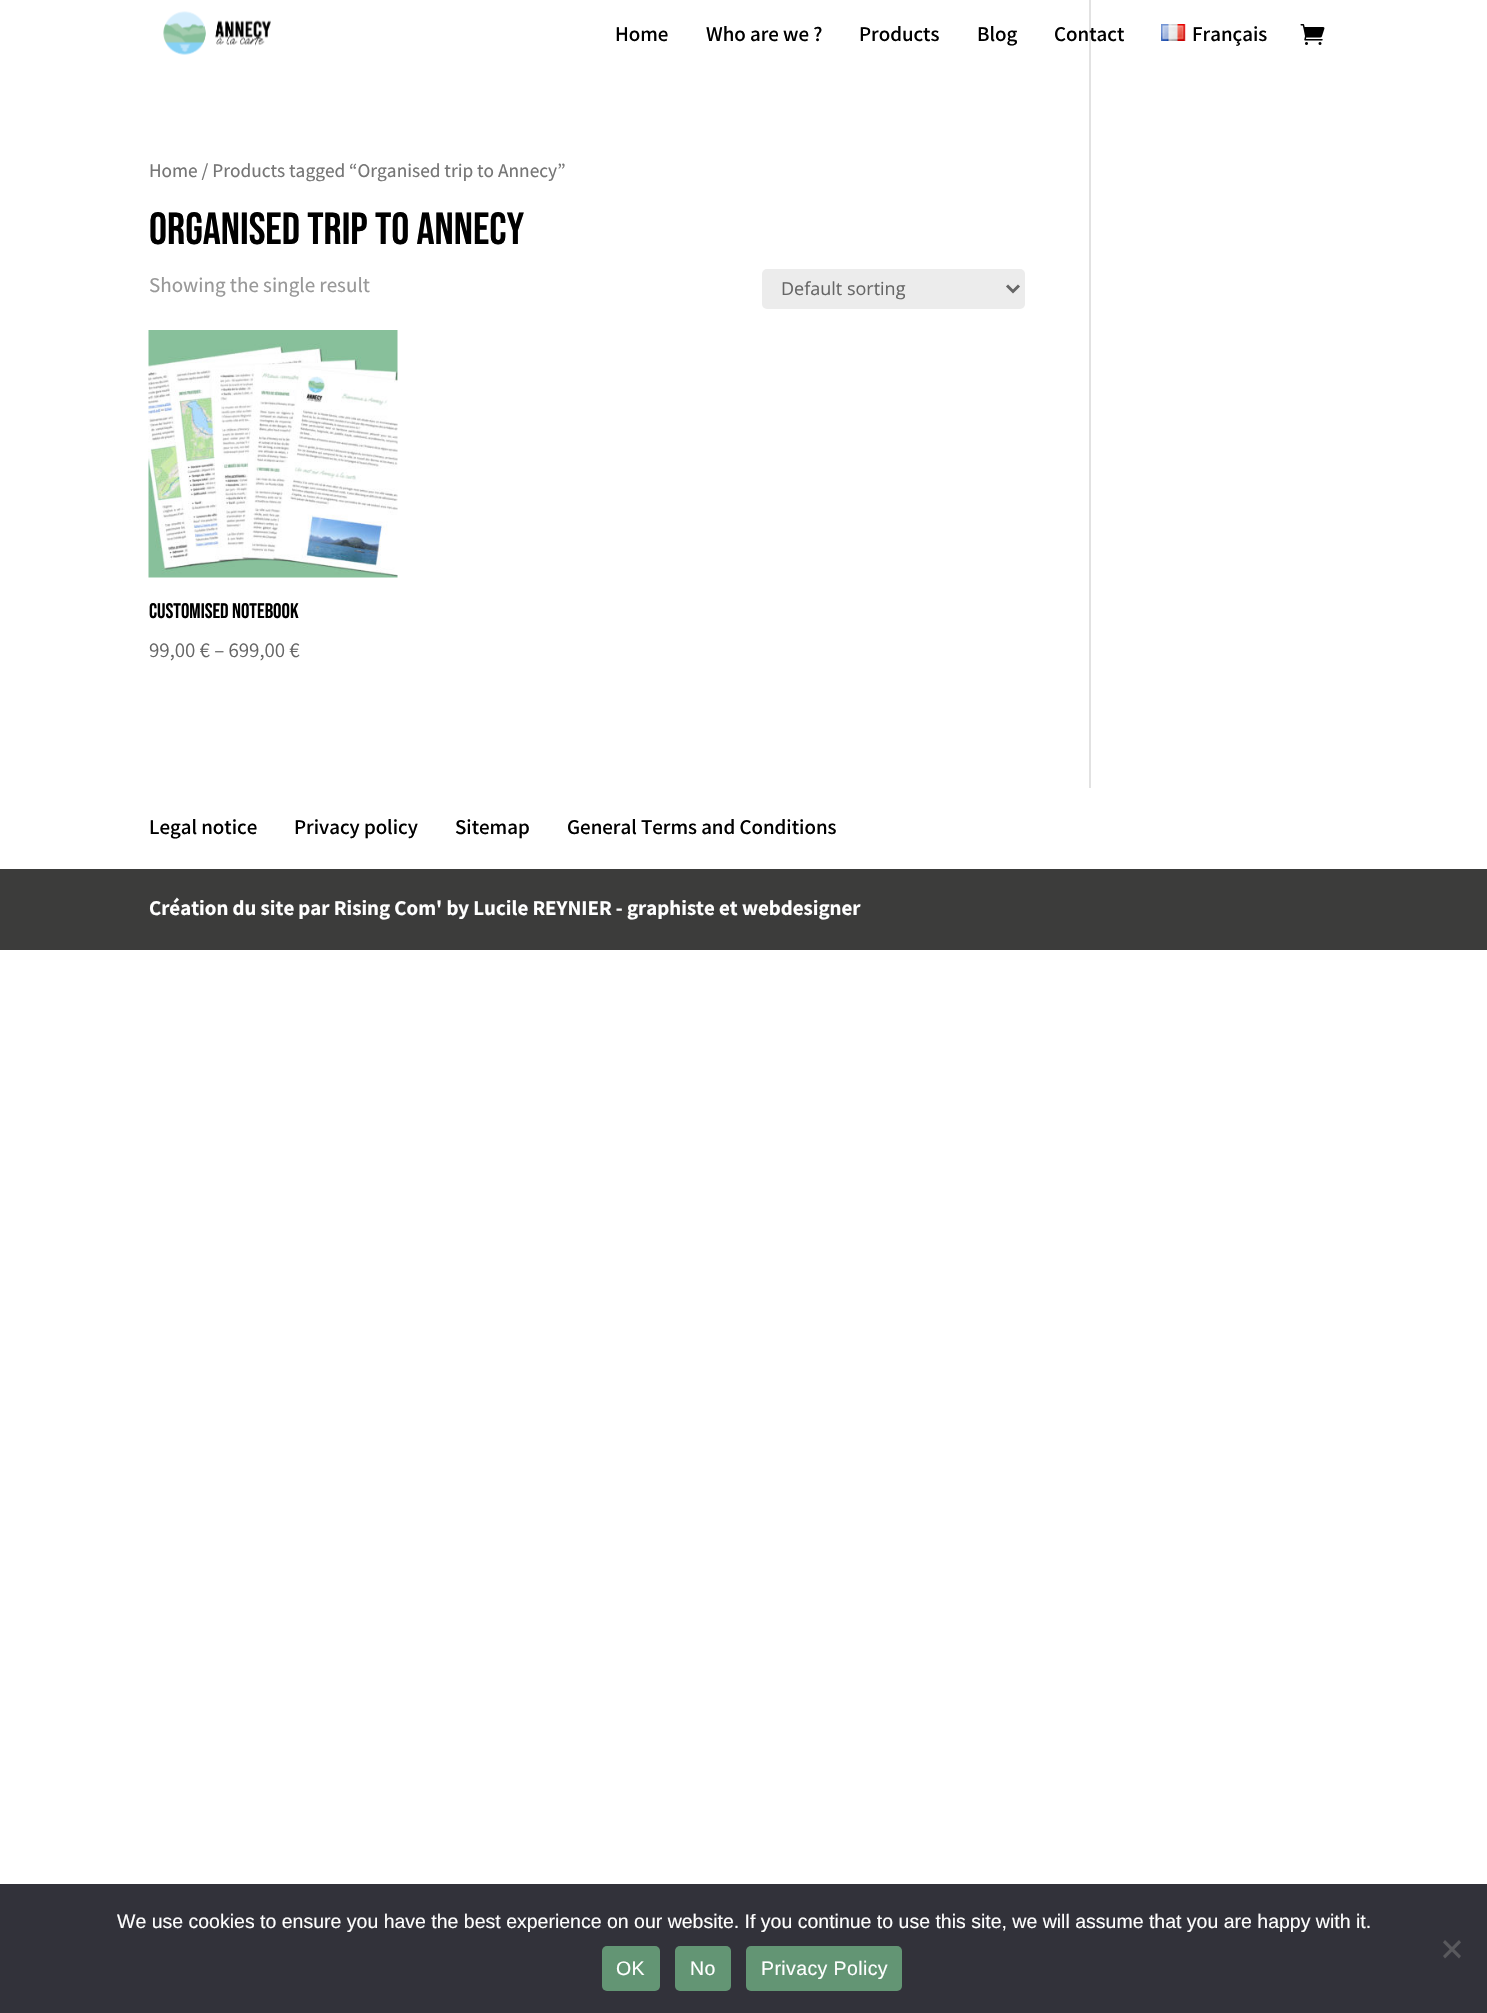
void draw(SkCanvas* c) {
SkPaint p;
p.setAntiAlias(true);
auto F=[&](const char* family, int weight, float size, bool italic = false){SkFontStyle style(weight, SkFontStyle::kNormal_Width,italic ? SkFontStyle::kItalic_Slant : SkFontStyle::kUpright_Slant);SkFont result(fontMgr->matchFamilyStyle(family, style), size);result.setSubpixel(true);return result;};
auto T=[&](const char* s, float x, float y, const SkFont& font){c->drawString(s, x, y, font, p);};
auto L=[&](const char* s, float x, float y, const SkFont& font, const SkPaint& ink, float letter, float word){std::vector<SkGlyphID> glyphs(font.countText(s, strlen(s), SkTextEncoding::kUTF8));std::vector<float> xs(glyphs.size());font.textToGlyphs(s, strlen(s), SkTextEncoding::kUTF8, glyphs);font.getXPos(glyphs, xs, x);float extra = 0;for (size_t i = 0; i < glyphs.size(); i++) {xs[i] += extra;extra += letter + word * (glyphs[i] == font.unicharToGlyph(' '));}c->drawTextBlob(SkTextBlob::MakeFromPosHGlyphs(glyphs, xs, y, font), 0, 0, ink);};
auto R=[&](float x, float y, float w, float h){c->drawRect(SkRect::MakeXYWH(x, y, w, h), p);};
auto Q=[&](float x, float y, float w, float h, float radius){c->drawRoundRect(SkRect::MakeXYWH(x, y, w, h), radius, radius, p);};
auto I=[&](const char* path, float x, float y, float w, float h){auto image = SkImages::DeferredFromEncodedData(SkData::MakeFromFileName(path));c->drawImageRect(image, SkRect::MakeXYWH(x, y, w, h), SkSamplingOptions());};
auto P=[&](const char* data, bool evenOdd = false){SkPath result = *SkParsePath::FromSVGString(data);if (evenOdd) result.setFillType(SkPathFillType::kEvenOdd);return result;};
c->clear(0xffffffff);
I("1.png",163,11,108,44);
auto f1 = F("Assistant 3",200,21);
p.setColor(0xff000000);
T("Home",615,41,f1);
T("Who are we ?",706,41,f1);
T("Products",859,41,f1);
T("Blog",977,41,f1);
p.setColor(0xffe2e2e2);
R(1089,0,2,788);
p.setColor(0xff000000);
T("Contact",1054,41,f1);
I("2.png",1161,24,25,17);
T("Français",1192,41,f1);
I("3.png",1300,24,25,21);
auto f2 = F("Assistant",200,19.3);
p.setColor(0xff767676);
T("Home / Products tagged “Organised trip to Annecy”",149,177,f2);
auto f3 = F("Bebas Neue",400,45);
p.setColor(0xff000000);
T("Organised trip to Annecy",149,244,f3);
auto f4 = F("Assistant",200,21);
p.setColor(0xff999999);
T("Showing the single result",149,292,f4);
p.setColor(0xffececec);
Q(762,269,263,40,5);
p.setStroke(true);
p.setStrokeWidth(3);
p.setColor(0xff666666);
c->drawPath(P("M1007 285.5l6 6l6-6"),p);
auto f5 = F("Open Sans",400,18);
p.setStroke(false);
T("Default sorting",781,295,f5);
I("4.png",148,330,250,248);
auto f6 = F("Bebas Neue",400,21);
p.setColor(0xff000000);
T("Customised notebook",149,618,f6);
auto f7 = F("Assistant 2",200,21);
p.setColor(0xff666666);
T("99,00 € – 699,00 €",149,657,f7);
p.setColor(0xff000000);
T("Legal notice",149,834,f1);
T("Privacy policy",294,834,f1);
T("Sitemap",455,834,f1);
T("General Terms and Conditions",567,834,f1);
p.setColor(0xff3c3c3b);
R(0,869,1487,81);
auto f8 = F("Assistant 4",200,21);
p.setColor(0xffffffff);
T("Création du site par Rising Com' by Lucile REYNIER - graphiste et webdesigner",149,915,f8);
p.setColor(0xff32323a);
R(0,1884,1487,129);
auto f9 = F("Liberation Sans",400,19.5);
p.setColor(0xffffffff);
T("We use cookies to ensure you have the best experience on our website. If you continue to use this site, we will assume that you are happy with it.",117,1928,f9);
p.setColor(0xff59595d);
c->drawPath(P("M1459 1940l2 2.5l-16 16l-2-2.5z"),p);
c->drawPath(P("M1443 1942.5l2-2.5l16 16l-2 2.5z"),p);
p.setColor(0xff639574);
Q(602,1946,58,45,5);
p.setColor(0xffffffff);
L("OK",616,1975,f9,p,.4,0);
p.setColor(0xff639574);
Q(675,1946,56,45,5);
p.setColor(0xffffffff);
L("No",690,1975,f9,p,.4,0);
p.setColor(0xff639574);
Q(746,1946,156,45,5);
p.setColor(0xffffffff);
L("Privacy Policy",761,1975,f9,p,.4,0);
}
